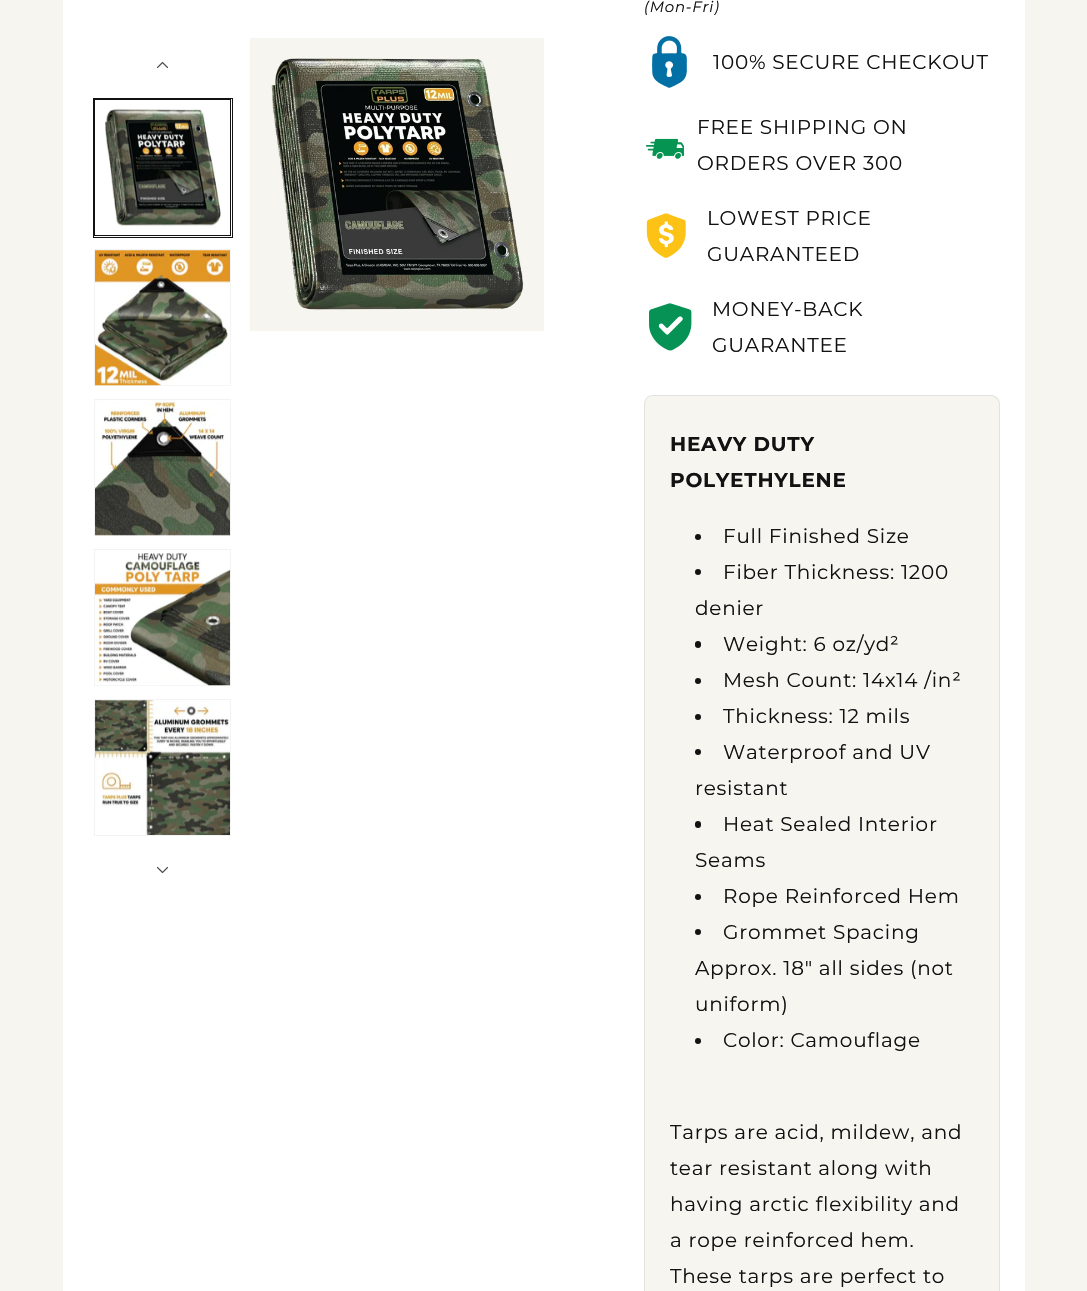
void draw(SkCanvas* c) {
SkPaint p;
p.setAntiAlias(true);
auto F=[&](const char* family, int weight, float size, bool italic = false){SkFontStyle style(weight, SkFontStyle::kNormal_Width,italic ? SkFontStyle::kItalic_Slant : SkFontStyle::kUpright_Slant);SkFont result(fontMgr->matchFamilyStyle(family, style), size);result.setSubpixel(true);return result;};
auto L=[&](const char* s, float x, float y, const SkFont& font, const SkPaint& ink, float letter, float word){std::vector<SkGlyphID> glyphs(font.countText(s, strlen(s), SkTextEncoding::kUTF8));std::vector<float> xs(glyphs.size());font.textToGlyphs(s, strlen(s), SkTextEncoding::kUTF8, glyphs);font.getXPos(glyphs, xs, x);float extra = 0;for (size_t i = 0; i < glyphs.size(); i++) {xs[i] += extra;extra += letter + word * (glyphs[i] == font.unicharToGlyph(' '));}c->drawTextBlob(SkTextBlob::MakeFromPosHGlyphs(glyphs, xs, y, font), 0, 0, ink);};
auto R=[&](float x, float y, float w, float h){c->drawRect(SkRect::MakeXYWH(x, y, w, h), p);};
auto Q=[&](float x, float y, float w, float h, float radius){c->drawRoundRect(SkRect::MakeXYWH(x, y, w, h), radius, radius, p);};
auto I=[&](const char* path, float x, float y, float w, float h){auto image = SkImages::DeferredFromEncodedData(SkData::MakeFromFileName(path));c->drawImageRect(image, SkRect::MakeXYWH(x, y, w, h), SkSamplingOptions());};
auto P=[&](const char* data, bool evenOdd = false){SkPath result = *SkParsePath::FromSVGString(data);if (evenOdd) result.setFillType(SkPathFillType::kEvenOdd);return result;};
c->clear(0xfff6f5f0);
p.setColor(0xffffffff);
R(63,0,962,1291);
I("1.png",156,61,13,8);
p.setStroke(true);
p.setStrokeWidth(1);
p.setColor(0xff121212);
c->drawRect(SkRect::MakeXYWH(93.5,98.5,139,139),p);
c->drawRect(SkRect::MakeXYWH(94.5,99.5,136,136),p);
I("2.png",105,109,116,117);
p.setColor(0xfff3f3f3);
c->drawRect(SkRect::MakeXYWH(94.5,249.5,136,136),p);
I("3.png",95,250,135,136);
c->drawRect(SkRect::MakeXYWH(94.5,399.5,136,136),p);
I("4.png",95,400,135,136);
c->drawRect(SkRect::MakeXYWH(94.5,549.5,136,136),p);
I("5.png",95,553,135,133);
c->drawRect(SkRect::MakeXYWH(94.5,699.5,136,136),p);
I("6.png",95,700,135,135);
I("7.png",156,866,13,8);
p.setStroke(false);
p.setColor(0xfff6f5f0);
R(250,38,294,293);
I("8.png",271,58,253,252);
auto f1 = F("Montserrat",400,15,true);
p.setColor(0xff121212);
L("(Mon-Fri)",644,12,f1,p,.75,0);
I("9.png",652,36,35,52);
auto f2 = F("Montserrat",400,20);
L("100% SECURE CHECKOUT",713,69,f2,p,.75,0);
I("10.png",646,138,38,21);
L("FREE SHIPPING ON",697,134,f2,p,.75,0);
L("ORDERS OVER 300",697,170,f2,p,.75,0);
I("11.png",646,213,40,45);
L("LOWEST PRICE",707,225,f2,p,.75,0);
L("GUARANTEED",707,261,f2,p,.75,0);
I("12.png",649,303,43,48);
L("MONEY-BACK",712,316,f2,p,.75,0);
L("GUARANTEE",712,352,f2,p,.75,0);
p.setColor(0xfff6f5f0);
Q(644,395,356,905,9);
p.setColor(0x14121212);
c->drawPath(P("M652 395h339c5 0 9 4 9 9v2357c0 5-4 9-9 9h-339c-4 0-8-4-8-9v-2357c0-5 4-9 8-9zm0 1h339c4 0 8 4 8 8v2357c0 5-4 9-8 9h-339c-4 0-7-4-7-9v-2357c0-4 3-8 7-8z",true),p);
auto f3 = F("Montserrat",700,20);
p.setColor(0xff121212);
L("HEAVY DUTY",670,451,f3,p,.75,0);
L("POLYETHYLENE",670,487,f3,p,.75,0);
c->drawCircle(698,537,3,p);
L("Full Finished Size",723,543,f2,p,.75,0);
c->drawCircle(698,572,3,p);
L("Fiber Thickness: 1200",723,579,f2,p,.75,0);
L("denier",695,615,f2,p,.75,0);
Q(695,641,6,7,3);
L("Weight: 6 oz/yd²",723,651,f2,p,.75,0);
c->drawCircle(698,681,3,p);
L("Mesh Count: 14x14 /in²",723,687,f2,p,.75,0);
c->drawCircle(698,717,3,p);
L("Thickness: 12 mils",723,723,f2,p,.75,0);
c->drawCircle(698,752,3,p);
L("Waterproof and UV",723,759,f2,p,.75,0);
L("resistant",695,795,f2,p,.75,0);
Q(695,821,6,7,3);
L("Heat Sealed Interior",723,831,f2,p,.75,0);
L("Seams",695,867,f2,p,.75,0);
c->drawCircle(698,897,3,p);
L("Rope Reinforced Hem",723,903,f2,p,.75,0);
c->drawCircle(698,932,3,p);
L("Grommet Spacing",723,939,f2,p,.75,0);
L("Approx. 18\" all sides (not",695,975,f2,p,.75,0);
L("uniform)",695,1011,f2,p,.75,0);
c->drawCircle(698,1041,3,p);
L("Color: Camouflage",723,1047,f2,p,.75,0);
L("Tarps are acid, mildew, and",670,1139,f2,p,.75,0);
L("tear resistant along with",670,1175,f2,p,.75,0);
L("having arctic flexibility and",670,1211,f2,p,.75,0);
L("a rope reinforced hem.",670,1247,f2,p,.75,0);
L("These tarps are perfect to",670,1283,f2,p,.75,0);
}
